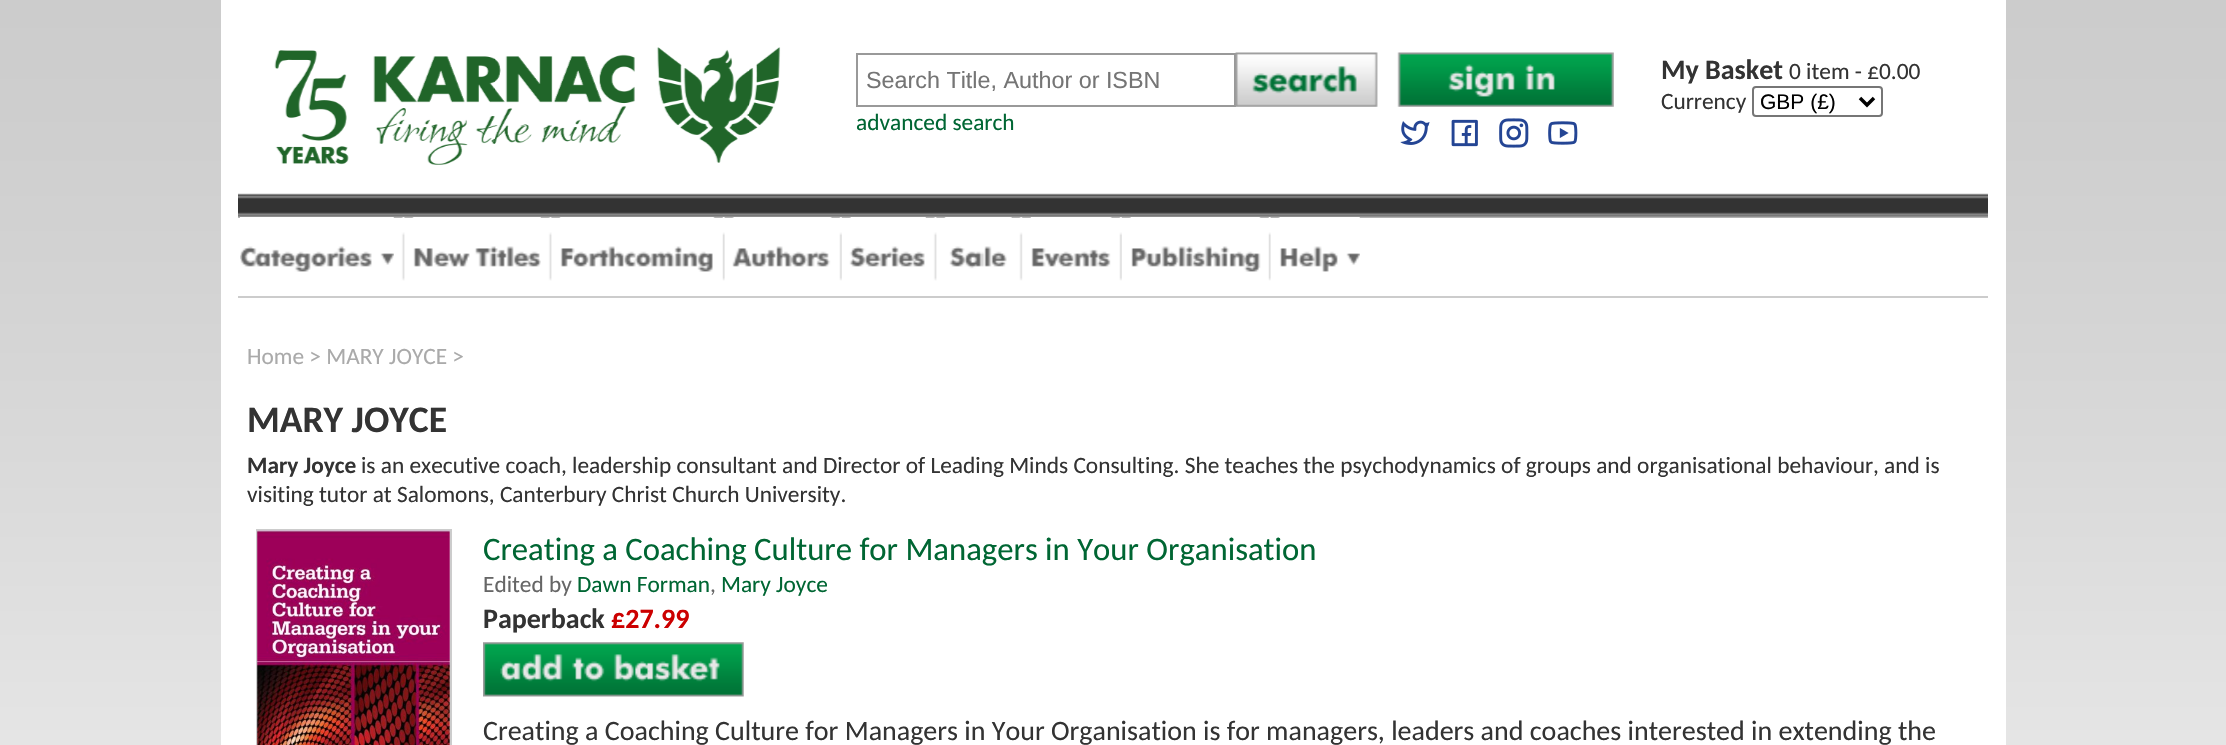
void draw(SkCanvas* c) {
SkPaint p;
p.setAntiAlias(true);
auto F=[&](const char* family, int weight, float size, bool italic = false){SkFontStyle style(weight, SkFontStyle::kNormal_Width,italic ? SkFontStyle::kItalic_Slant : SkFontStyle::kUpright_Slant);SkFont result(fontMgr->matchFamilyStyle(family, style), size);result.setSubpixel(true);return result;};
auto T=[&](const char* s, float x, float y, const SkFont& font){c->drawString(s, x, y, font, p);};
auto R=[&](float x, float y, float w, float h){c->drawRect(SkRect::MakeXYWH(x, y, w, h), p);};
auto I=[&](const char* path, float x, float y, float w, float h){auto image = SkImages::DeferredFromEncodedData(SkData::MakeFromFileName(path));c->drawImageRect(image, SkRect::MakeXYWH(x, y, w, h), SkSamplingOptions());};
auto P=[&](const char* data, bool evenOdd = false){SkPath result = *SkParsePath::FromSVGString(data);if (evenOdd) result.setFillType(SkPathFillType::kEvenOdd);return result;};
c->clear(0xffffffff);
I("1.png",0,0,2226,745);
p.setColor(0xffffffff);
R(221,0,1785,745);
I("2.png",274,47,507,118);
p.setStroke(true);
p.setStrokeWidth(2);
p.setColor(0xff999999);
c->drawRect(SkRect::MakeXYWH(857,54,378,52),p);
auto f1 = F("Liberation Sans",400,23.33);
p.setStroke(false);
p.setColor(0xff757575);
T("Search Title, Author or ISBN",866,88,f1);
I("3.png",1235,52,143,55);
auto f2 = F("Carlito",400,23.33);
p.setColor(0xff006633);
T("advanced search",856,130,f2);
I("4.png",1397,52,217,55);
I("5.png",1400,120,30,25);
I("6.png",1451,119,27,28);
I("7.png",1499,118,30,30);
I("8.png",1548,121,30,24);
auto f3 = F("Carlito",700,28);
p.setColor(0xff333333);
T("My Basket",1661,79,f3);
T("0 item - £0.00",1789,79,f2);
T("Currency",1661,109,f2);
p.setStroke(true);
p.setColor(0xff767676);
c->drawRoundRect(SkRect::MakeXYWH(1753,87,129,29),3,3,p);
p.setStrokeWidth(3.5);
p.setColor(0xff000000);
c->drawPath(P("M1860 98l7 7l7-7"),p);
auto f4 = F("Liberation Sans",400,21);
p.setStroke(false);
T("GBP (£)",1760,109,f4);
I("9.png",238,193,1750,25);
p.setColor(0xffcccccc);
R(238,296,1750,2);
I("10.png",240,217,154,55);
I("11.png",401,217,4,64);
I("12.png",412,217,129,50);
I("11.png",548,217,4,64);
I("13.png",559,217,156,55);
I("14.png",722,217,3,64);
I("15.png",732,217,100,50);
I("16.png",839,217,3,64);
I("17.png",849,217,77,50);
I("11.png",933,217,4,64);
I("18.png",944,217,68,52);
I("19.png",1019,217,4,64);
I("20.png",1030,217,82,50);
I("16.png",1119,217,3,64);
I("21.png",1129,217,132,55);
I("14.png",1268,217,3,64);
I("22.png",1278,217,82,55);
p.setColor(0xffaaaaaa);
T("Home > MARY JOYCE >",247,364,f2);
auto f5 = F("Carlito",700,37.5);
p.setColor(0xff333333);
T("MARY JOYCE",247,432,f5);
auto f6 = F("Carlito",700,23.33);
T("Mary Joyce",247,473,f6);
T("is an executive coach, leadership consultant and Director of Leading Minds Consulting. She teaches the psychodynamics of groups and organisational behaviour, and is",361,473,f2);
T("visiting tutor at Salomons, Canterbury Christ Church University.",247,502,f2);
p.setStroke(true);
p.setStrokeWidth(2);
p.setColor(0xffcccccc);
c->drawRect(SkRect::MakeXYWH(257,530,194,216),p);
I("23.png",257,530,193,215);
auto f7 = F("Carlito",400,32.7);
p.setStroke(false);
p.setColor(0xff006633);
T("Creating a Coaching Culture for Managers in Your Organisation",483,560,f7);
p.setColor(0xff666666);
T("Edited by",483,592,f2);
p.setColor(0xff006633);
T("Dawn Forman",577,592,f2);
p.setColor(0xff666666);
T(",",710,592,f2);
p.setColor(0xff006633);
T("Mary Joyce",721,592,f2);
p.setColor(0xff333333);
T("Paperback",483,628,f3);
p.setColor(0xffcc0000);
T("£27.99",611,628,f3);
I("24.png",483,642,261,55);
auto f8 = F("Carlito",400,28);
p.setColor(0xff333333);
T("Creating a Coaching Culture for Managers in Your Organisation is for managers, leaders and coaches interested in extending the",483,740,f8);
}
